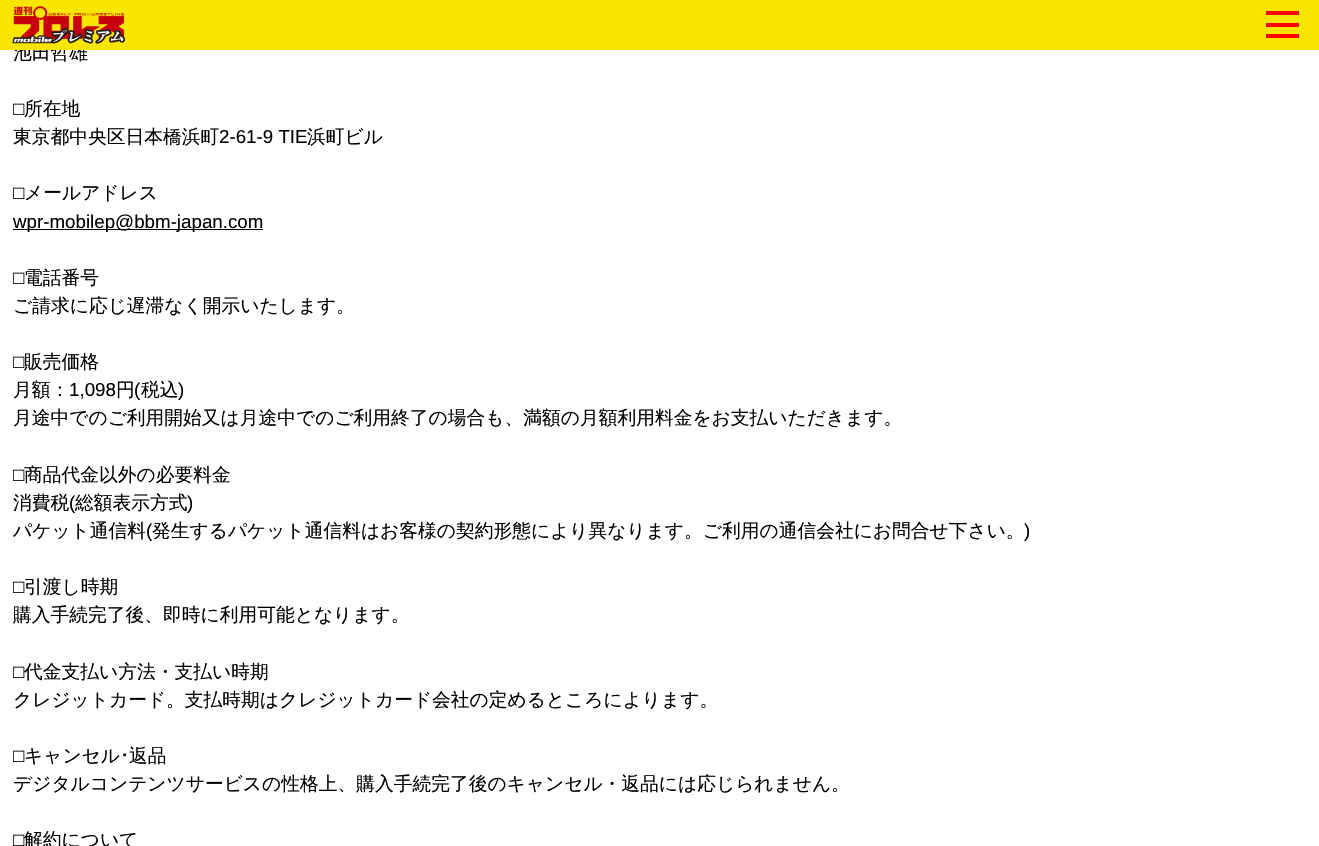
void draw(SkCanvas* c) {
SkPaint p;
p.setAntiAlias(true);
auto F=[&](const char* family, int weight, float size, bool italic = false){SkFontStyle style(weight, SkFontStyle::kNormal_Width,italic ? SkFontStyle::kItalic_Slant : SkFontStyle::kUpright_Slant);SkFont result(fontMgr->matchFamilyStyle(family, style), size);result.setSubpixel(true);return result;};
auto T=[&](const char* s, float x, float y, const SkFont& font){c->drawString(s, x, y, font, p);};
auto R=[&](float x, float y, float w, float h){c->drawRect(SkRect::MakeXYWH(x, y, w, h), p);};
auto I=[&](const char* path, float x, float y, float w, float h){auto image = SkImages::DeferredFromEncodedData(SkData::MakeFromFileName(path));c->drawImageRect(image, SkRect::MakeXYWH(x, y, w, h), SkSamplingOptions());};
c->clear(0xffffffff);
auto f1 = F("WenQuanYi Zen Hei",500,18.75);
p.setColor(0xff000000);
T("池田哲雄",13,59,f1);
p.setColor(0xfff9e600);
R(0,0,1319,50);
p.setColor(0xffff0000);
R(1266,11,33,4);
R(1266,23,33,4);
R(1266,34,33,4);
I("1.png",12,6,113,38);
auto f2 = F("Liberation Sans",400,18.75);
p.setColor(0xff000000);
T("□",13,115,f2);
T("所在地",24,115,f1);
T("東京都中央区日本橋浜町",13,143,f1);
T("2-61-9 TIE",219,143,f2);
T("浜町ビル",307,143,f1);
T("□",13,199,f2);
T("メールアドレス",24,199,f1);
R(13,229,250,1);
T("wpr-mobilep@bbm-japan.com",13,228,f2);
T("□",13,284,f2);
T("電話番号",24,284,f1);
T("ご請求に応じ遅滞なく開示いたします。",13,312,f1);
T("□",13,368,f2);
T("販売価格",24,368,f1);
T("月額：",13,396,f1);
T("1,098",69,396,f2);
T("円",116,396,f1);
T("(",134,396,f2);
T("税込",141,396,f1);
T(")",178,396,f2);
T("月途中でのご利用開始又は月途中でのご利用終了の場合も、満額の月額利用料金をお支払いただきます。",13,424,f1);
T("□",13,481,f2);
T("商品代金以外の必要料金",24,481,f1);
T("消費税",13,509,f1);
T("(",69,509,f2);
T("総額表示方式",75,509,f1);
T(")",187,509,f2);
T("パケット通信料",13,537,f1);
T("(",146,537,f2);
T("発生するパケット通信料はお客様の契約形態により異なります。ご利用の通信会社にお問合せ下さい。",152,537,f1);
T(")",1024,537,f2);
T("□",13,593,f2);
T("引渡し時期",24,593,f1);
T("購入手続完了後、即時に利用可能となります。",13,621,f1);
T("□",13,678,f2);
T("代金支払い方法・支払い時期",24,678,f1);
T("クレジットカード。支払時期はクレジットカード会社の定めるところによります。",13,706,f1);
T("□",13,762,f2);
T("キャンセル",24,762,f1);
auto f3 = F("IPAPGothic",400,18.75);
T("･",120,762,f3);
T("返品",129,762,f1);
T("デジタルコンテンツサービスの性格上、購入手続完了後のキャンセル・返品には応じられません。",13,790,f1);
T("□",13,846,f2);
T("解約について",24,846,f1);
}
